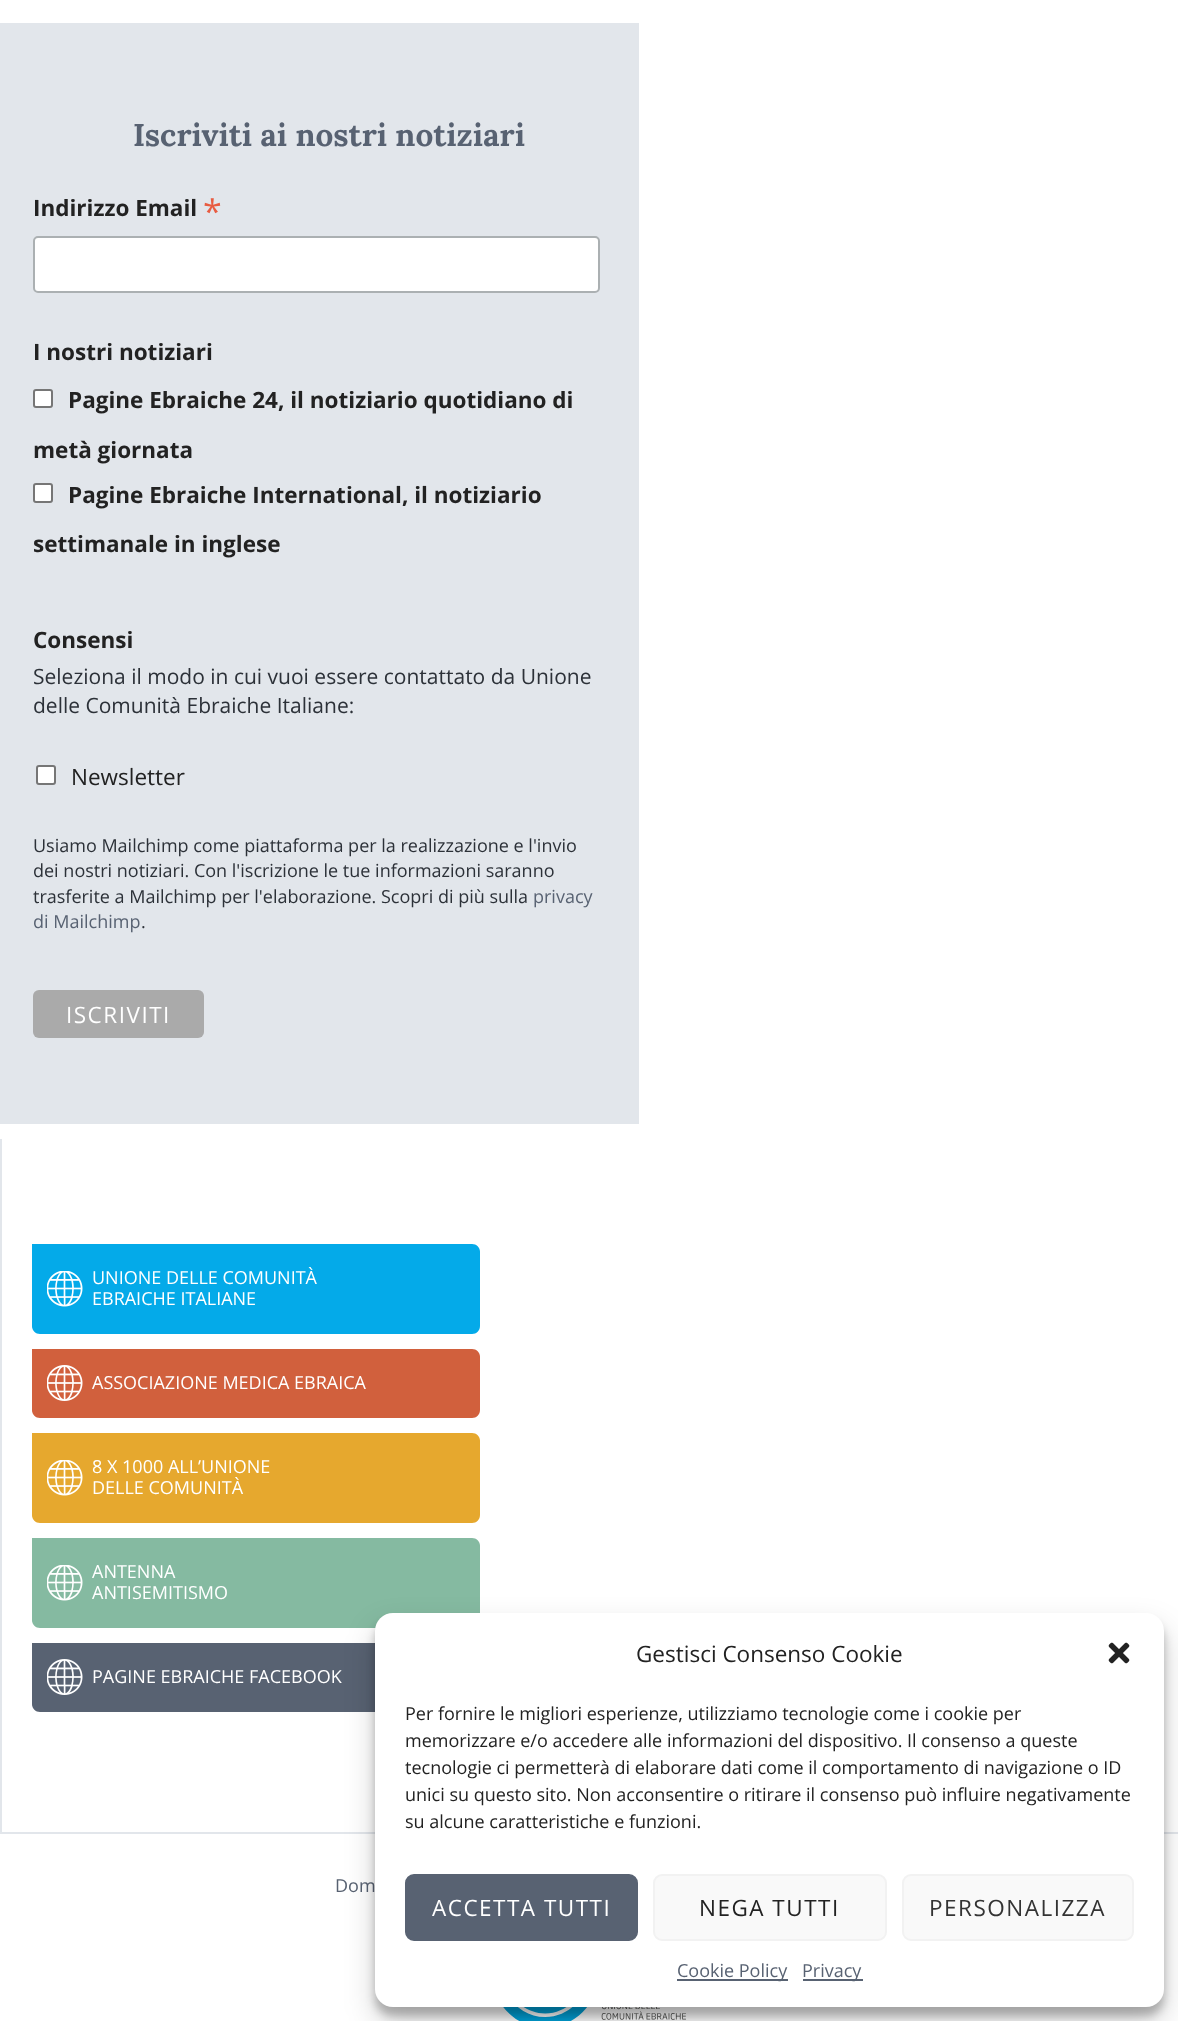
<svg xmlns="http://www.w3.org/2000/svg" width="1178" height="2021">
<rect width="100%" height="100%" fill="#fff"/>
<rect y="23" width="639" height="1101" fill="#e2e6eb"/>
<text x="133" y="146" style="font-family:Lora;font-size:31.5px;font-weight:bold;fill:#586272">Iscriviti ai nostri notiziari</text>
<text x="33" y="216" style="font-family:Open Sans;font-size:22.5px;font-weight:bold;fill:#222">Indirizzo Email</text>
<text x="203" y="224" style="font-family:Open Sans;font-size:34px;fill:#e85c41">*</text>
<rect x="34" y="237" width="565" height="55" rx="4" fill="#fff" stroke="#abb0b2" stroke-width="2"/>
<text x="33" y="360" style="font-family:Open Sans;font-size:22.5px;font-weight:bold;fill:#222">I nostri notiziari</text>
<rect x="34" y="390" width="18" height="17" rx="2" fill="#fff" stroke="#767676" stroke-width="2"/>
<text x="68" y="408" style="font-family:Open Sans;font-size:22.5px;font-weight:bold;fill:#222">Pagine Ebraiche 24, il notiziario quotidiano di</text>
<text x="33" y="458" style="font-family:Open Sans;font-size:22.5px;font-weight:bold;fill:#222">metà giornata</text>
<rect x="34" y="484" width="18" height="18" rx="2" fill="#fff" stroke="#767676" stroke-width="2"/>
<text x="68" y="503" style="font-family:Open Sans;font-size:22.5px;font-weight:bold;fill:#222">Pagine Ebraiche International, il notiziario</text>
<text x="33" y="552" style="font-family:Open Sans;font-size:22.5px;font-weight:bold;fill:#222">settimanale in inglese</text>
<text x="33" y="648" style="font-family:Open Sans;font-size:22.5px;font-weight:bold;fill:#222">Consensi</text>
<text x="33" y="684" style="font-family:Open Sans;font-size:21px;fill:#2c3138">Seleziona il modo in cui vuoi essere contattato da Unione</text>
<text x="33" y="713" style="font-family:Open Sans;font-size:21px;fill:#2c3138">delle Comunità Ebraiche Italiane:</text>
<rect x="37" y="766" width="18" height="18" rx="2" fill="#fff" stroke="#767676" stroke-width="2"/>
<text x="71" y="785" style="font-family:Open Sans;font-size:22.5px;fill:#222">Newsletter</text>
<text x="33" y="852" style="font-family:Open Sans;font-size:18px;fill:#2c3138">Usiamo Mailchimp come piattaforma per la realizzazione e l'invio</text>
<text x="33" y="877" style="font-family:Open Sans;font-size:18px;fill:#2c3138">dei nostri notiziari. Con l'iscrizione le tue informazioni saranno</text>
<text x="33" y="903" style="font-family:Open Sans;font-size:18px;fill:#2c3138">trasferite a Mailchimp per l'elaborazione. Scopri di più sulla</text>
<text x="533" y="903" style="font-family:Open Sans;font-size:18px;fill:#586272">privacy</text>
<text x="33" y="928" style="font-family:Open Sans;font-size:18px;fill:#586272">di Mailchimp</text>
<text x="141" y="928" style="font-family:Open Sans;font-size:18px;fill:#2c3138">.</text>
<rect x="33" y="990" width="171" height="48" rx="6" fill="#aaa"/>
<text x="66" y="1023" style="font-family:Open Sans;font-size:22.5px;letter-spacing:1.5px;fill:#fff">ISCRIVITI</text>
<rect y="1139" width="2" height="693" fill="#e2e6eb"/>
<path d="M32 1244h440c4.5 0 8 3.5 8 8v74c0 4.5-3.5 8-8 8h-432c-4.5 0-8-3.5-8-8z" fill="#04aae9"/>
<image x="47" y="1271" width="36" height="36" href="media/1.png"/>
<text x="92" y="1284" style="font-family:Open Sans;font-size:18px;fill:#fff">UNIONE DELLE COMUNITÀ</text>
<text x="92" y="1305" style="font-family:Open Sans;font-size:18px;fill:#fff">EBRAICHE ITALIANE</text>
<path d="M32 1349h440c4.5 0 8 3.5 8 8v53c0 4.5-3.5 8-8 8h-432c-4.5 0-8-3.5-8-8z" fill="#d1603d"/>
<image x="47" y="1365" width="36" height="36" href="media/2.png"/>
<text x="92" y="1389" style="font-family:Open Sans;font-size:18px;fill:#fff">ASSOCIAZIONE MEDICA EBRAICA</text>
<path d="M32 1433h440c4.5 0 8 3.5 8 8v74c0 4.5-3.5 8-8 8h-432c-4.5 0-8-3.5-8-8z" fill="#e6a82e"/>
<image x="47" y="1460" width="36" height="36" href="media/3.png"/>
<text x="92" y="1473" style="font-family:Open Sans;font-size:18px;fill:#fff">8 X 1000 ALL’UNIONE</text>
<text x="92" y="1494" style="font-family:Open Sans;font-size:18px;fill:#fff">DELLE COMUNITÀ</text>
<path d="M32 1538h440c4.5 0 8 3.5 8 8v74c0 4.5-3.5 8-8 8h-432c-4.5 0-8-3.5-8-8z" fill="#85baa1"/>
<image x="47" y="1565" width="36" height="36" href="media/4.png"/>
<text x="92" y="1578" style="font-family:Open Sans;font-size:18px;fill:#fff">ANTENNA</text>
<text x="92" y="1599" style="font-family:Open Sans;font-size:18px;fill:#fff">ANTISEMITISMO</text>
<path d="M32 1643h440c4.5 0 8 3.5 8 8v53c0 4.5-3.5 8-8 8h-432c-4.5 0-8-3.5-8-8z" fill="#586272"/>
<image x="47" y="1659" width="36" height="36" href="media/5.png"/>
<text x="92" y="1683" style="font-family:Open Sans;font-size:18px;fill:#fff">PAGINE EBRAICHE FACEBOOK</text>
<rect y="1832" width="1178" height="2" fill="#e2e6eb"/>
<text x="335" y="1892" style="font-family:Open Sans;font-size:18px;fill:#586272">Dom</text>
<image x="503" y="2007" width="183" height="14" href="media/6.png"/>
<rect x="375" y="1622" width="789" height="394" rx="18" fill="#0000003b" filter="blur(4.5px)"/>
<rect x="375" y="1628" width="789" height="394" rx="18" fill="#00000030" filter="blur(15px)"/>
<rect x="375" y="1613" width="789" height="394" rx="18" fill="#fff"/>
<text x="636" y="1662" style="font-family:Open Sans;font-size:22.5px;fill:#222">Gestisci Consenso Cookie</text>
<image x="1108" y="1642" width="22" height="22" href="media/7.png"/>
<text x="405" y="1720" style="font-family:Open Sans;font-size:18px;fill:#222">Per fornire le migliori esperienze, utilizziamo tecnologie come i cookie per</text>
<text x="405" y="1747" style="font-family:Open Sans;font-size:18px;fill:#222">memorizzare e/o accedere alle informazioni del dispositivo. Il consenso a queste</text>
<text x="405" y="1774" style="font-family:Open Sans;font-size:18px;fill:#222">tecnologie ci permetterà di elaborare dati come il comportamento di navigazione o ID</text>
<text x="405" y="1801" style="font-family:Open Sans;font-size:18px;fill:#222">unici su questo sito. Non acconsentire o ritirare il consenso può influire negativamente</text>
<text x="405" y="1828" style="font-family:Open Sans;font-size:18px;fill:#222">su alcune caratteristiche e funzioni.</text>
<rect x="406" y="1875" width="231" height="65" rx="8" fill="#586272" stroke="#586272" stroke-width="2"/>
<text x="432" y="1916" style="font-family:Open Sans;font-size:22.5px;letter-spacing:1.5px;fill:#fff">ACCETTA TUTTI</text>
<rect x="654" y="1875" width="232" height="65" rx="8" fill="#f9f9f9" stroke="#f2f2f2" stroke-width="2"/>
<text x="699" y="1916" style="font-family:Open Sans;font-size:22.5px;letter-spacing:1.5px;fill:#222">NEGA TUTTI</text>
<rect x="903" y="1875" width="230" height="65" rx="8" fill="#f9f9f9" stroke="#f2f2f2" stroke-width="2"/>
<text x="929" y="1916" style="font-family:Open Sans;font-size:22.5px;letter-spacing:1.5px;fill:#333">PERSONALIZZA</text>
<rect x="677" y="1979" width="111" height="2" fill="#586272"/>
<text x="677" y="1977" style="font-family:Open Sans;font-size:18px;fill:#586272">Cookie Policy</text>
<rect x="803" y="1979" width="60" height="2" fill="#586272"/>
<text x="802" y="1977" style="font-family:Open Sans;font-size:18px;fill:#586272">Privacy</text>
</svg>
